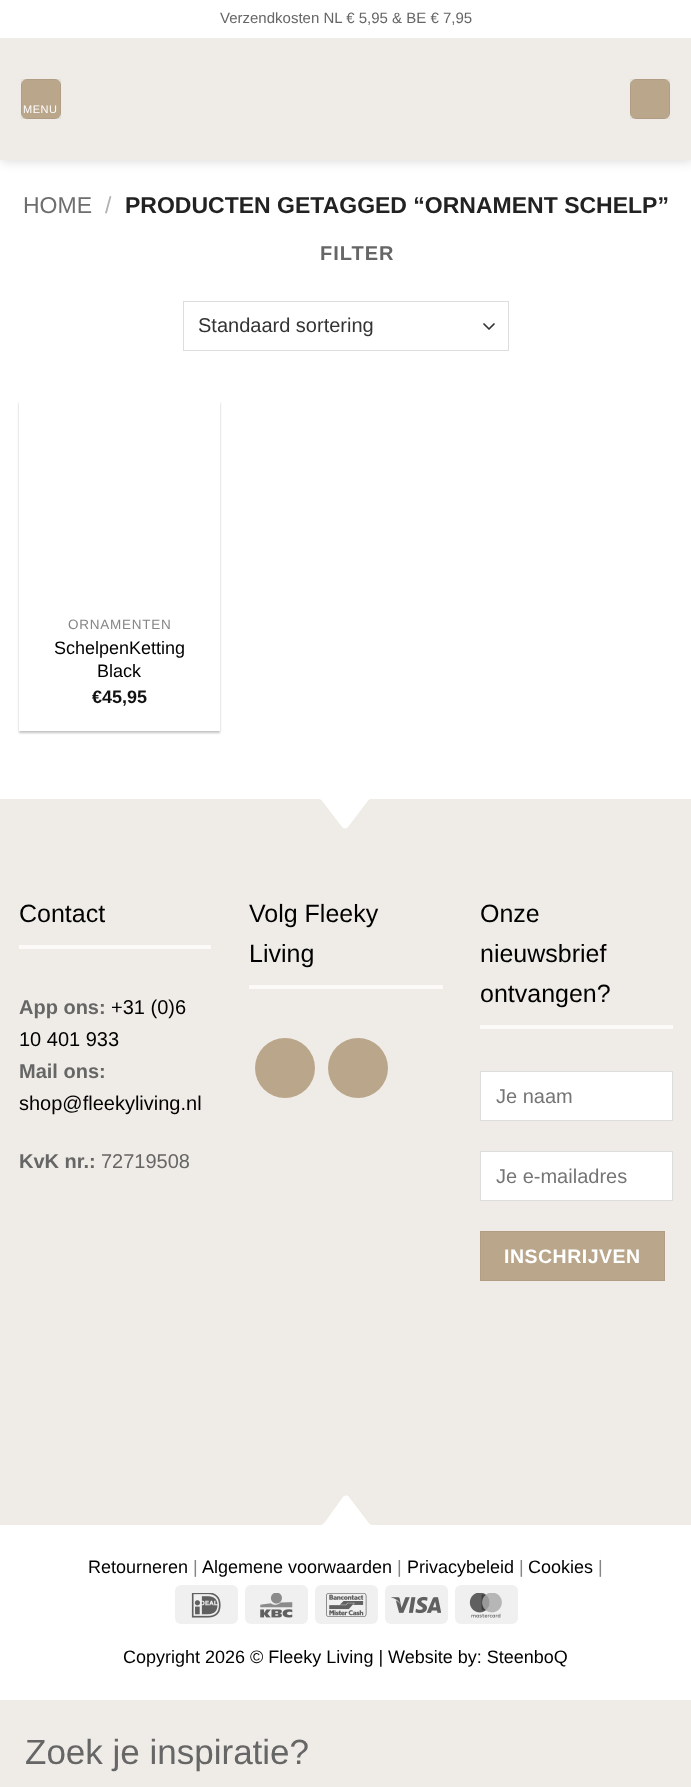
<svg xmlns="http://www.w3.org/2000/svg" width="691" height="1787">
<defs>
<clipPath id="clip1"><path d="M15 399h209v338h-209zm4 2h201v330h-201z" clip-rule="evenodd"/></clipPath>
<clipPath id="clip2"><rect y="793" width="691" height="187"/></clipPath>
</defs>
<rect width="100%" height="100%" fill="#efece7"/>
<rect y="160" width="691" height="1540" fill="#fff"/>
<rect x="1" y="1" width="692" height="160" fill="#00000026" filter="blur(6px)"/>
<rect width="691" height="38" fill="#fff"/>
<text x="220" y="23" style="font-family:Liberation Sans;font-size:15px;fill:#666">Verzendkosten NL € 5,95 &amp; BE € 7,95</text>
<rect y="38" width="691" height="122" fill="#efece7"/>
<rect x="21" y="79" width="40" height="40" rx="6" fill="#baa68b"/>
<rect x="21.5" y="79.5" width="39" height="39" fill="none" stroke="#0000000d"/>
<text x="23" y="113" style="font-family:Liberation Sans;font-size:11px;letter-spacing:0.5px;fill:#fff">MENU</text>
<rect x="630" y="79" width="40" height="40" rx="6" fill="#baa68b"/>
<rect x="630.5" y="79.5" width="39" height="39" fill="none" stroke="#0000000d"/>
<text x="23" y="213" style="font-family:Liberation Sans;font-size:23px;fill:#6e6e6e">HOME</text>
<text x="105" y="213" style="font-family:Liberation Sans;font-size:23px;fill:#b2b2b2">/</text>
<text x="125" y="213" style="font-family:Liberation Sans;font-size:23px;font-weight:bold;fill:#222">PRODUCTEN GETAGGED “ORNAMENT SCHELP”</text>
<text x="320" y="260" style="font-family:Liberation Sans;font-size:20px;font-weight:bold;letter-spacing:1px;fill:#666">FILTER</text>
<path d="M484 324l5 5l5-5" fill="none" stroke="#333" stroke-width="1.7" stroke-linecap="round" stroke-linejoin="round"/>
<rect x="183.5" y="301.5" width="325" height="49" fill="none" stroke="#ddd"/>
<text x="198" y="332" style="font-family:Liberation Sans;font-size:20px;fill:#333">Standaard sortering</text>
<g clip-path="url(#clip1)">
<rect x="19" y="403" width="201" height="330" fill="#0000003d" filter="blur(1px)"/>
</g>
<text x="68" y="629" style="font-family:Liberation Sans;font-size:13.5px;letter-spacing:0.75px;fill:#858585">ORNAMENTEN</text>
<text x="54" y="654" style="font-family:Liberation Sans;font-size:18px;fill:#000">SchelpenKetting</text>
<text x="97" y="677" style="font-family:Liberation Sans;font-size:18px;fill:#000">Black</text>
<text x="92" y="703" style="font-family:Liberation Sans;font-size:18px;font-weight:bold;fill:#111">€45,95</text>
<rect y="799" width="691" height="726" fill="#efece7"/>
<g clip-path="url(#clip2)">
<path d="M-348 791h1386v8h-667c-1 0-3 1-4 3l-19 25c-2 2-4 2-6 0l-19-25c-1-2-3-3-4-3h-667z" fill="#fff"/>
</g>
<rect x="19" y="945" width="192" height="4" fill="#fbfaf9"/>
<text x="19" y="922" style="font-family:Liberation Sans;font-size:25px;fill:#000">Contact</text>
<text x="19" y="1014" style="font-family:Liberation Sans;font-size:20px;font-weight:bold;fill:#666">App ons:</text>
<text x="111" y="1014" style="font-family:Liberation Sans;font-size:20px;fill:#000">+31 (0)6</text>
<text x="19" y="1046" style="font-family:Liberation Sans;font-size:20px;fill:#000">10 401 933</text>
<text x="19" y="1078" style="font-family:Liberation Sans;font-size:20px;font-weight:bold;fill:#666">Mail ons:</text>
<text x="19" y="1110" style="font-family:Liberation Sans;font-size:20px;fill:#000">shop@fleekyliving.nl</text>
<text x="19" y="1168" style="font-family:Liberation Sans;font-size:20px;font-weight:bold;fill:#666">KvK nr.:</text>
<text x="101" y="1168" style="font-family:Liberation Sans;font-size:20px;fill:#666">72719508</text>
<rect x="249" y="985" width="194" height="4" fill="#fbfaf9"/>
<text x="249" y="922" style="font-family:Liberation Sans;font-size:25px;fill:#000">Volg Fleeky</text>
<text x="249" y="962" style="font-family:Liberation Sans;font-size:25px;fill:#000">Living</text>
<circle cx="285" cy="1068" r="30" fill="#baa68b"/>
<circle cx="358" cy="1068" r="30" fill="#baa68b"/>
<rect x="480" y="1025" width="193" height="4" fill="#fbfaf9"/>
<text x="480" y="922" style="font-family:Liberation Sans;font-size:25px;fill:#000">Onze</text>
<text x="480" y="962" style="font-family:Liberation Sans;font-size:25px;fill:#000">nieuwsbrief</text>
<text x="480" y="1002" style="font-family:Liberation Sans;font-size:25px;fill:#000">ontvangen?</text>
<rect x="480.5" y="1071.5" width="192" height="49" fill="#fff" stroke="#ddd"/>
<text x="496" y="1103" style="font-family:Liberation Sans;font-size:20px;fill:#757575">Je naam</text>
<rect x="480.5" y="1151.5" width="192" height="49" fill="#fff" stroke="#ddd"/>
<text x="496" y="1183" style="font-family:Liberation Sans;font-size:20px;fill:#757575">Je e-mailadres</text>
<rect x="480.5" y="1231.5" width="184" height="49" fill="#baa68b" stroke="#b19e84"/>
<text x="504" y="1263" style="font-family:Liberation Sans;font-size:19.5px;font-weight:bold;letter-spacing:0.5px;fill:#fff">INSCHRIJVEN</text>
<path d="M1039 1532h-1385v-7h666c2 0 3-1 5-3l18-25c2-2 5-2 6 0l19 25c1 2 3 3 5 3h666z" fill="#fff"/>
<text x="88" y="1573" style="font-family:Liberation Sans;font-size:18px;fill:#000">Retourneren</text>
<text x="193" y="1573" style="font-family:Liberation Sans;font-size:18px;fill:#858585">|</text>
<text x="202" y="1573" style="font-family:Liberation Sans;font-size:18px;fill:#000">Algemene voorwaarden</text>
<text x="397" y="1573" style="font-family:Liberation Sans;font-size:18px;fill:#858585">|</text>
<text x="407" y="1573" style="font-family:Liberation Sans;font-size:18px;fill:#000">Privacybeleid</text>
<text x="519" y="1573" style="font-family:Liberation Sans;font-size:18px;fill:#858585">|</text>
<text x="528" y="1573" style="font-family:Liberation Sans;font-size:18px;fill:#000">Cookies</text>
<text x="598" y="1573" style="font-family:Liberation Sans;font-size:18px;fill:#858585">|</text>
<rect x="175" y="1585" width="63" height="39" rx="6" fill="#f0f0f0"/>
<image x="191" y="1593" width="30" height="25" href="media/1.png"/>
<rect x="245" y="1585" width="63" height="39" rx="6" fill="#f0f0f0"/>
<image x="260" y="1593" width="33" height="25" href="media/2.png"/>
<rect x="315" y="1585" width="63" height="39" rx="6" fill="#f0f0f0"/>
<image x="326" y="1593" width="41" height="24" href="media/3.png"/>
<rect x="385" y="1585" width="63" height="39" rx="6" fill="#f0f0f0"/>
<image x="391" y="1596" width="50" height="18" href="media/4.png"/>
<rect x="455" y="1585" width="63" height="39" rx="6" fill="#f0f0f0"/>
<image x="469" y="1593" width="33" height="25" href="media/5.png"/>
<text x="123" y="1663" style="font-family:Liberation Sans;font-size:18px;fill:#000">Copyright 2026 © Fleeky Living | Website by: SteenboQ</text>
<text x="25" y="1764" style="font-family:Liberation Sans;font-size:35px;fill:#666">Zoek je inspiratie?</text>
</svg>
